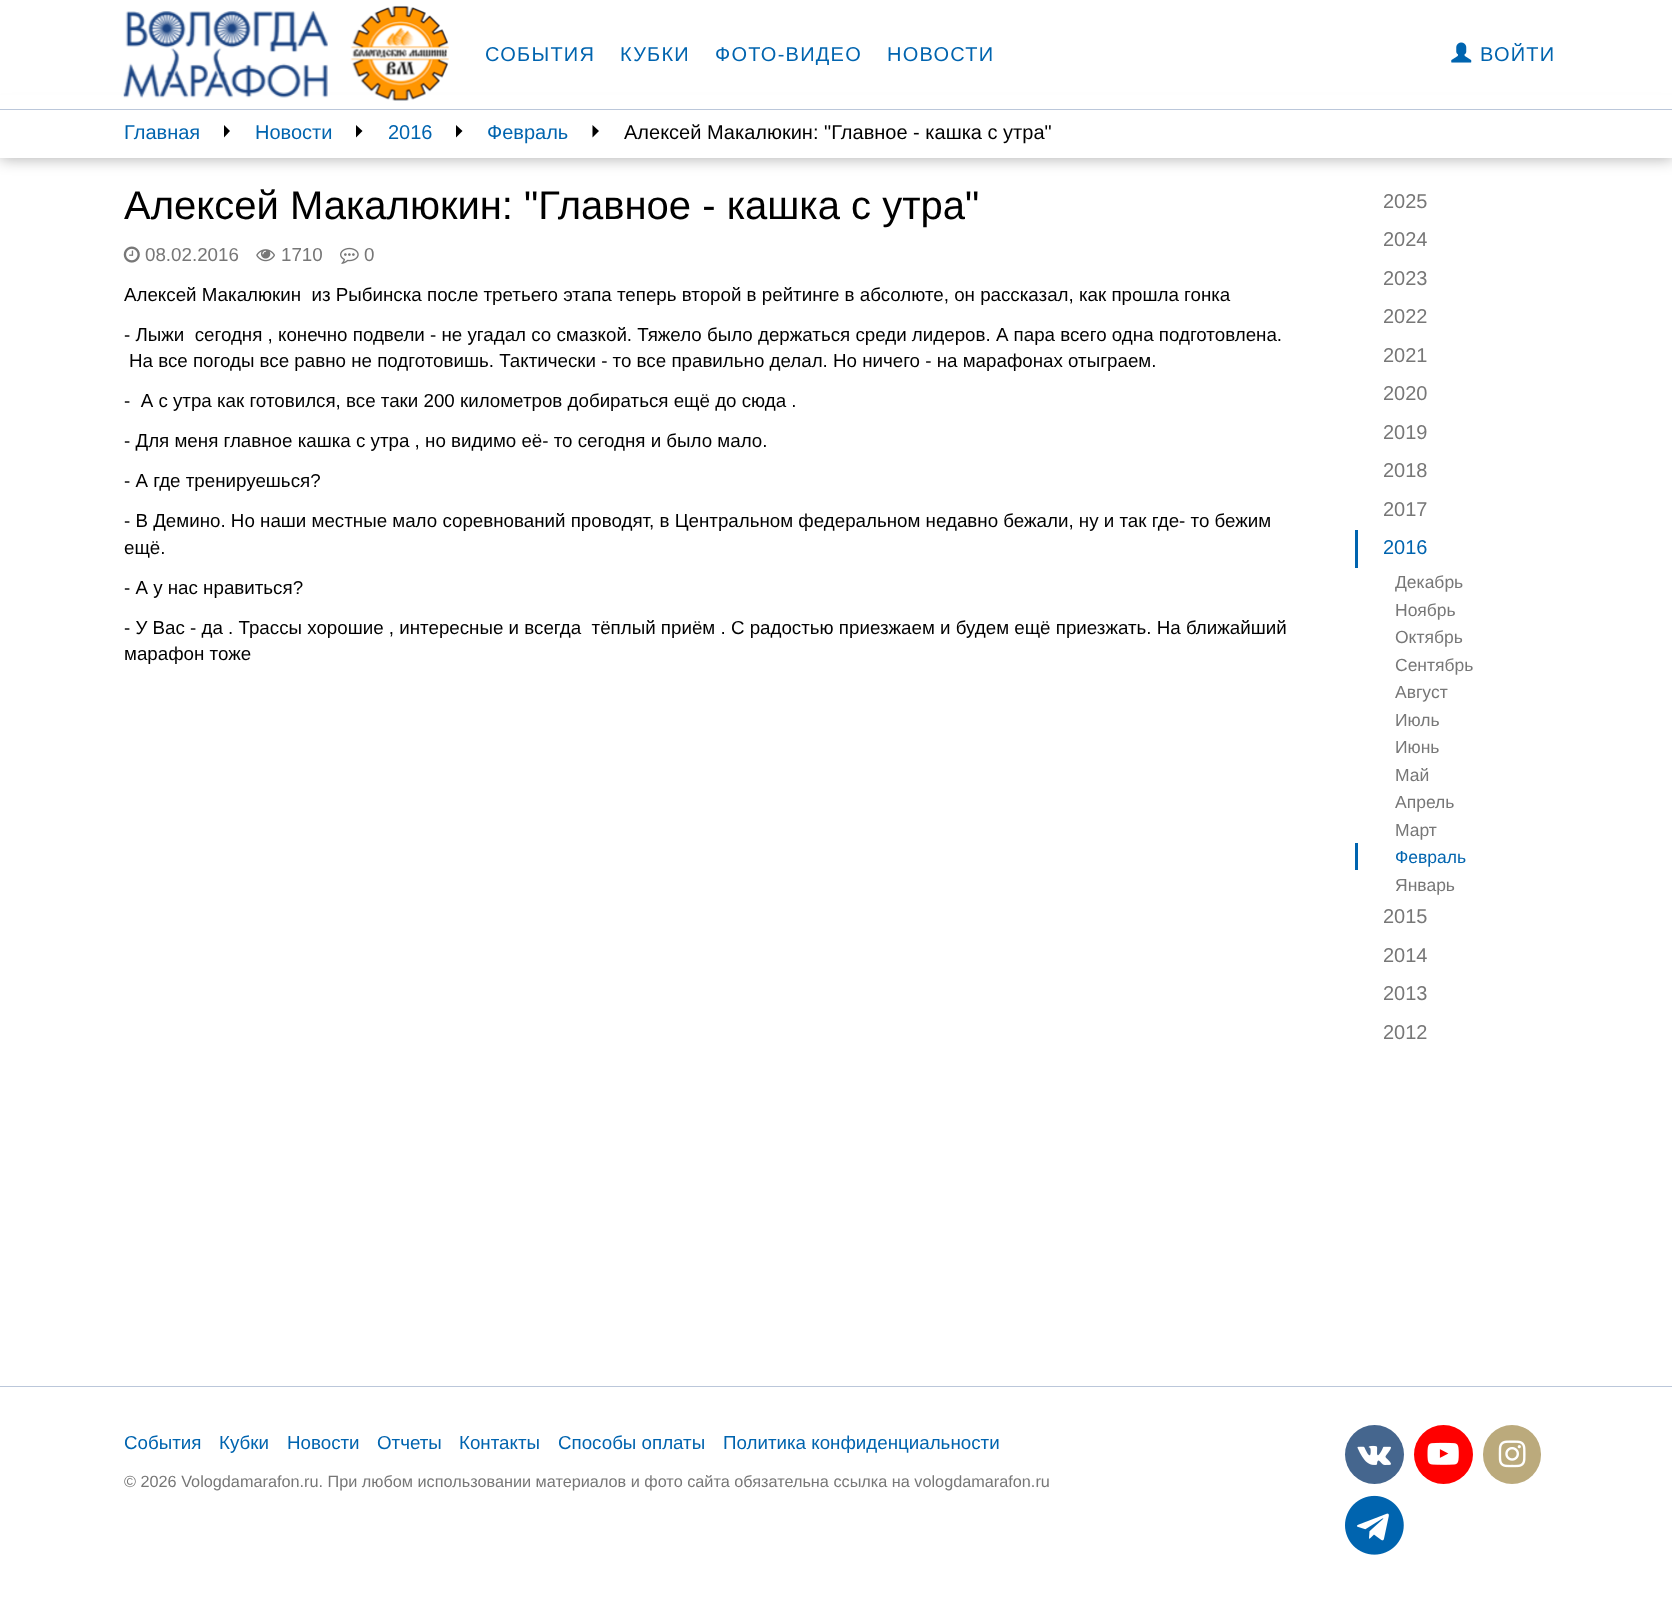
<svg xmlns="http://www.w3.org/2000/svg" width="1672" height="1605">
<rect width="100%" height="100%" fill="#fff"/>
<rect y="109" width="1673" height="50" fill="#0000004d" filter="blur(7.5px)"/>
<rect y="95" width="1672" height="14" fill="#fff"/>
<rect y="109" width="1672" height="1" fill="#bbc7da"/>
<image x="123" y="10" width="205" height="88" href="media/1.png"/>
<image x="350" y="5" width="99" height="96" href="media/2.png"/>
<text x="485" y="61" style="font-family:Liberation Sans;font-size:20px;letter-spacing:1.25px;fill:#0064af">СОБЫТИЯ</text>
<text x="620" y="61" style="font-family:Liberation Sans;font-size:20px;letter-spacing:1.25px;fill:#0064af">КУБКИ</text>
<text x="715" y="61" style="font-family:Liberation Sans;font-size:20px;letter-spacing:1.25px;fill:#0064af">ФОТО-ВИДЕО</text>
<text x="887" y="61" style="font-family:Liberation Sans;font-size:20px;letter-spacing:1.25px;fill:#0064af">НОВОСТИ</text>
<image x="1451" y="42" width="21" height="21" href="media/3.png"/>
<text x="1480" y="61" style="font-family:Liberation Sans;font-size:20px;letter-spacing:1.25px;fill:#0064af">ВОЙТИ</text>
<rect y="110" width="1672" height="48" fill="#fff"/>
<text x="124" y="139" style="font-family:Liberation Sans;font-size:20px;fill:#0064af">Главная</text>
<path d="M224 137.5v-12.5l6 6z" fill="#000"/>
<text x="255" y="139" style="font-family:Liberation Sans;font-size:20px;fill:#0064af">Новости</text>
<path d="M356 137.5v-12.5l6.5 6z" fill="#000"/>
<text x="388" y="139" style="font-family:Liberation Sans;font-size:20px;fill:#0064af">2016</text>
<path d="M456 137.5v-12.5l6.5 6z" fill="#000"/>
<text x="487" y="139" style="font-family:Liberation Sans;font-size:20px;fill:#0064af">Февраль</text>
<path d="M592.5 137.5v-12.5l6.5 6z" fill="#000"/>
<text x="624" y="139" style="font-family:Liberation Sans;font-size:20px;fill:#000">Алексей Макалюкин: "Главное - кашка с утра"</text>
<text x="1383" y="208" style="font-family:Liberation Sans;font-size:20px;fill:#777">2025</text>
<text x="1383" y="246" style="font-family:Liberation Sans;font-size:20px;fill:#777">2024</text>
<text x="1383" y="285" style="font-family:Liberation Sans;font-size:20px;fill:#777">2023</text>
<text x="1383" y="323" style="font-family:Liberation Sans;font-size:20px;fill:#777">2022</text>
<text x="1383" y="362" style="font-family:Liberation Sans;font-size:20px;fill:#777">2021</text>
<text x="1383" y="400" style="font-family:Liberation Sans;font-size:20px;fill:#777">2020</text>
<text x="1383" y="439" style="font-family:Liberation Sans;font-size:20px;fill:#777">2019</text>
<text x="1383" y="477" style="font-family:Liberation Sans;font-size:20px;fill:#777">2018</text>
<text x="1383" y="516" style="font-family:Liberation Sans;font-size:20px;fill:#777">2017</text>
<rect x="1355" y="530" width="3" height="38" fill="#0064af"/>
<text x="1383" y="554" style="font-family:Liberation Sans;font-size:20px;fill:#0064af">2016</text>
<text x="1395" y="588" style="font-family:Liberation Sans;font-size:17.5px;fill:#777">Декабрь</text>
<text x="1395" y="616" style="font-family:Liberation Sans;font-size:17.5px;fill:#777">Ноябрь</text>
<text x="1395" y="643" style="font-family:Liberation Sans;font-size:17.5px;fill:#777">Октябрь</text>
<text x="1395" y="671" style="font-family:Liberation Sans;font-size:17.5px;fill:#777">Сентябрь</text>
<text x="1395" y="698" style="font-family:Liberation Sans;font-size:17.5px;fill:#777">Август</text>
<text x="1395" y="726" style="font-family:Liberation Sans;font-size:17.5px;fill:#777">Июль</text>
<text x="1395" y="753" style="font-family:Liberation Sans;font-size:17.5px;fill:#777">Июнь</text>
<text x="1395" y="781" style="font-family:Liberation Sans;font-size:17.5px;fill:#777">Май</text>
<text x="1395" y="808" style="font-family:Liberation Sans;font-size:17.5px;fill:#777">Апрель</text>
<text x="1395" y="836" style="font-family:Liberation Sans;font-size:17.5px;fill:#777">Март</text>
<rect x="1355" y="843" width="3" height="27" fill="#0064af"/>
<text x="1395" y="863" style="font-family:Liberation Sans;font-size:17.5px;fill:#0064af">Февраль</text>
<text x="1395" y="891" style="font-family:Liberation Sans;font-size:17.5px;fill:#777">Январь</text>
<text x="1383" y="923" style="font-family:Liberation Sans;font-size:20px;fill:#777">2015</text>
<text x="1383" y="962" style="font-family:Liberation Sans;font-size:20px;fill:#777">2014</text>
<text x="1383" y="1000" style="font-family:Liberation Sans;font-size:20px;fill:#777">2013</text>
<text x="1383" y="1039" style="font-family:Liberation Sans;font-size:20px;fill:#777">2012</text>
<text x="124" y="219" style="font-family:Liberation Sans;font-size:40px;fill:#000">Алексей Макалюкин: "Главное - кашка с утра"</text>
<image x="123" y="246" width="17" height="17" href="media/4.png"/>
<text x="145" y="261" style="font-family:Liberation Sans;font-size:18.75px;fill:#777">08.02.2016</text>
<image x="256" y="249" width="19" height="13" href="media/5.png"/>
<text x="281" y="261" style="font-family:Liberation Sans;font-size:18.75px;fill:#777">1710</text>
<image x="340" y="247" width="19" height="17" href="media/6.png"/>
<text x="364" y="261" style="font-family:Liberation Sans;font-size:18.75px;fill:#777">0</text>
<text x="124" y="301" style="font-family:Liberation Sans;font-size:18.75px;fill:#000" xml:space="preserve">Алексей Макалюкин  из Рыбинска после третьего этапа теперь второй в рейтинге в абсолюте, он рассказал, как прошла гонка</text>
<text x="124" y="341" style="font-family:Liberation Sans;font-size:18.75px;fill:#000" xml:space="preserve">- Лыжи  сегодня , конечно подвели - не угадал со смазкой. Тяжело было держаться среди лидеров. А пара всего одна подготовлена.</text>
<text x="129" y="367" style="font-family:Liberation Sans;font-size:18.75px;fill:#000">На все погоды все равно не подготовишь. Тактически - то все правильно делал. Но ничего - на марафонах отыграем.</text>
<text x="124" y="407" style="font-family:Liberation Sans;font-size:18.75px;fill:#000" xml:space="preserve">-  А с утра как готовился, все таки 200 километров добираться ещё до сюда .</text>
<text x="124" y="447" style="font-family:Liberation Sans;font-size:18.75px;fill:#000">- Для меня главное кашка с утра , но видимо её- то сегодня и было мало.</text>
<text x="124" y="487" style="font-family:Liberation Sans;font-size:18.75px;fill:#000">- А где тренируешься?</text>
<text x="124" y="527" style="font-family:Liberation Sans;font-size:18.75px;fill:#000">- В Демино. Но наши местные мало соревнований проводят, в Центральном федеральном недавно бежали, ну и так где- то бежим</text>
<text x="124" y="554" style="font-family:Liberation Sans;font-size:18.75px;fill:#000">ещё.</text>
<text x="124" y="594" style="font-family:Liberation Sans;font-size:18.75px;fill:#000">- А у нас нравиться?</text>
<text x="124" y="634" style="font-family:Liberation Sans;font-size:18.75px;fill:#000" xml:space="preserve">- У Вас - да . Трассы хорошие , интересные и всегда  тёплый приём . С радостью приезжаем и будем ещё приезжать. На ближайший</text>
<text x="124" y="660" style="font-family:Liberation Sans;font-size:18.75px;fill:#000">марафон тоже</text>
<rect y="1386" width="1672" height="1" fill="#bbc7da"/>
<text x="124" y="1449" style="font-family:Liberation Sans;font-size:18.75px;fill:#0064af">События</text>
<text x="219" y="1449" style="font-family:Liberation Sans;font-size:18.75px;fill:#0064af">Кубки</text>
<text x="287" y="1449" style="font-family:Liberation Sans;font-size:18.75px;fill:#0064af">Новости</text>
<text x="377" y="1449" style="font-family:Liberation Sans;font-size:18.75px;fill:#0064af">Отчеты</text>
<text x="459" y="1449" style="font-family:Liberation Sans;font-size:18.75px;fill:#0064af">Контакты</text>
<text x="558" y="1449" style="font-family:Liberation Sans;font-size:18.75px;fill:#0064af">Способы оплаты</text>
<text x="723" y="1449" style="font-family:Liberation Sans;font-size:18.75px;fill:#0064af">Политика конфиденциальности</text>
<text x="124" y="1487" style="font-family:Liberation Sans;font-size:16.25px;fill:#777">© 2026 Vologdamarafon.ru. При любом использовании материалов и фото сайта обязательна ссылка на vologdamarafon.ru</text>
<circle cx="1374.5" cy="1454.5" r="29.5" fill="#45668e"/>
<image x="1357" y="1445" width="34" height="20" href="media/7.png"/>
<circle cx="1443.5" cy="1454.5" r="29.5" fill="#f00"/>
<image x="1427" y="1442" width="32" height="23" href="media/8.png"/>
<rect x="1483" y="1425" width="58" height="59" rx="29" fill="#bbaa7c"/>
<image x="1498" y="1440" width="28" height="28" href="media/9.png"/>
<image x="1345" y="1495" width="59" height="60" href="media/10.png"/>
</svg>
